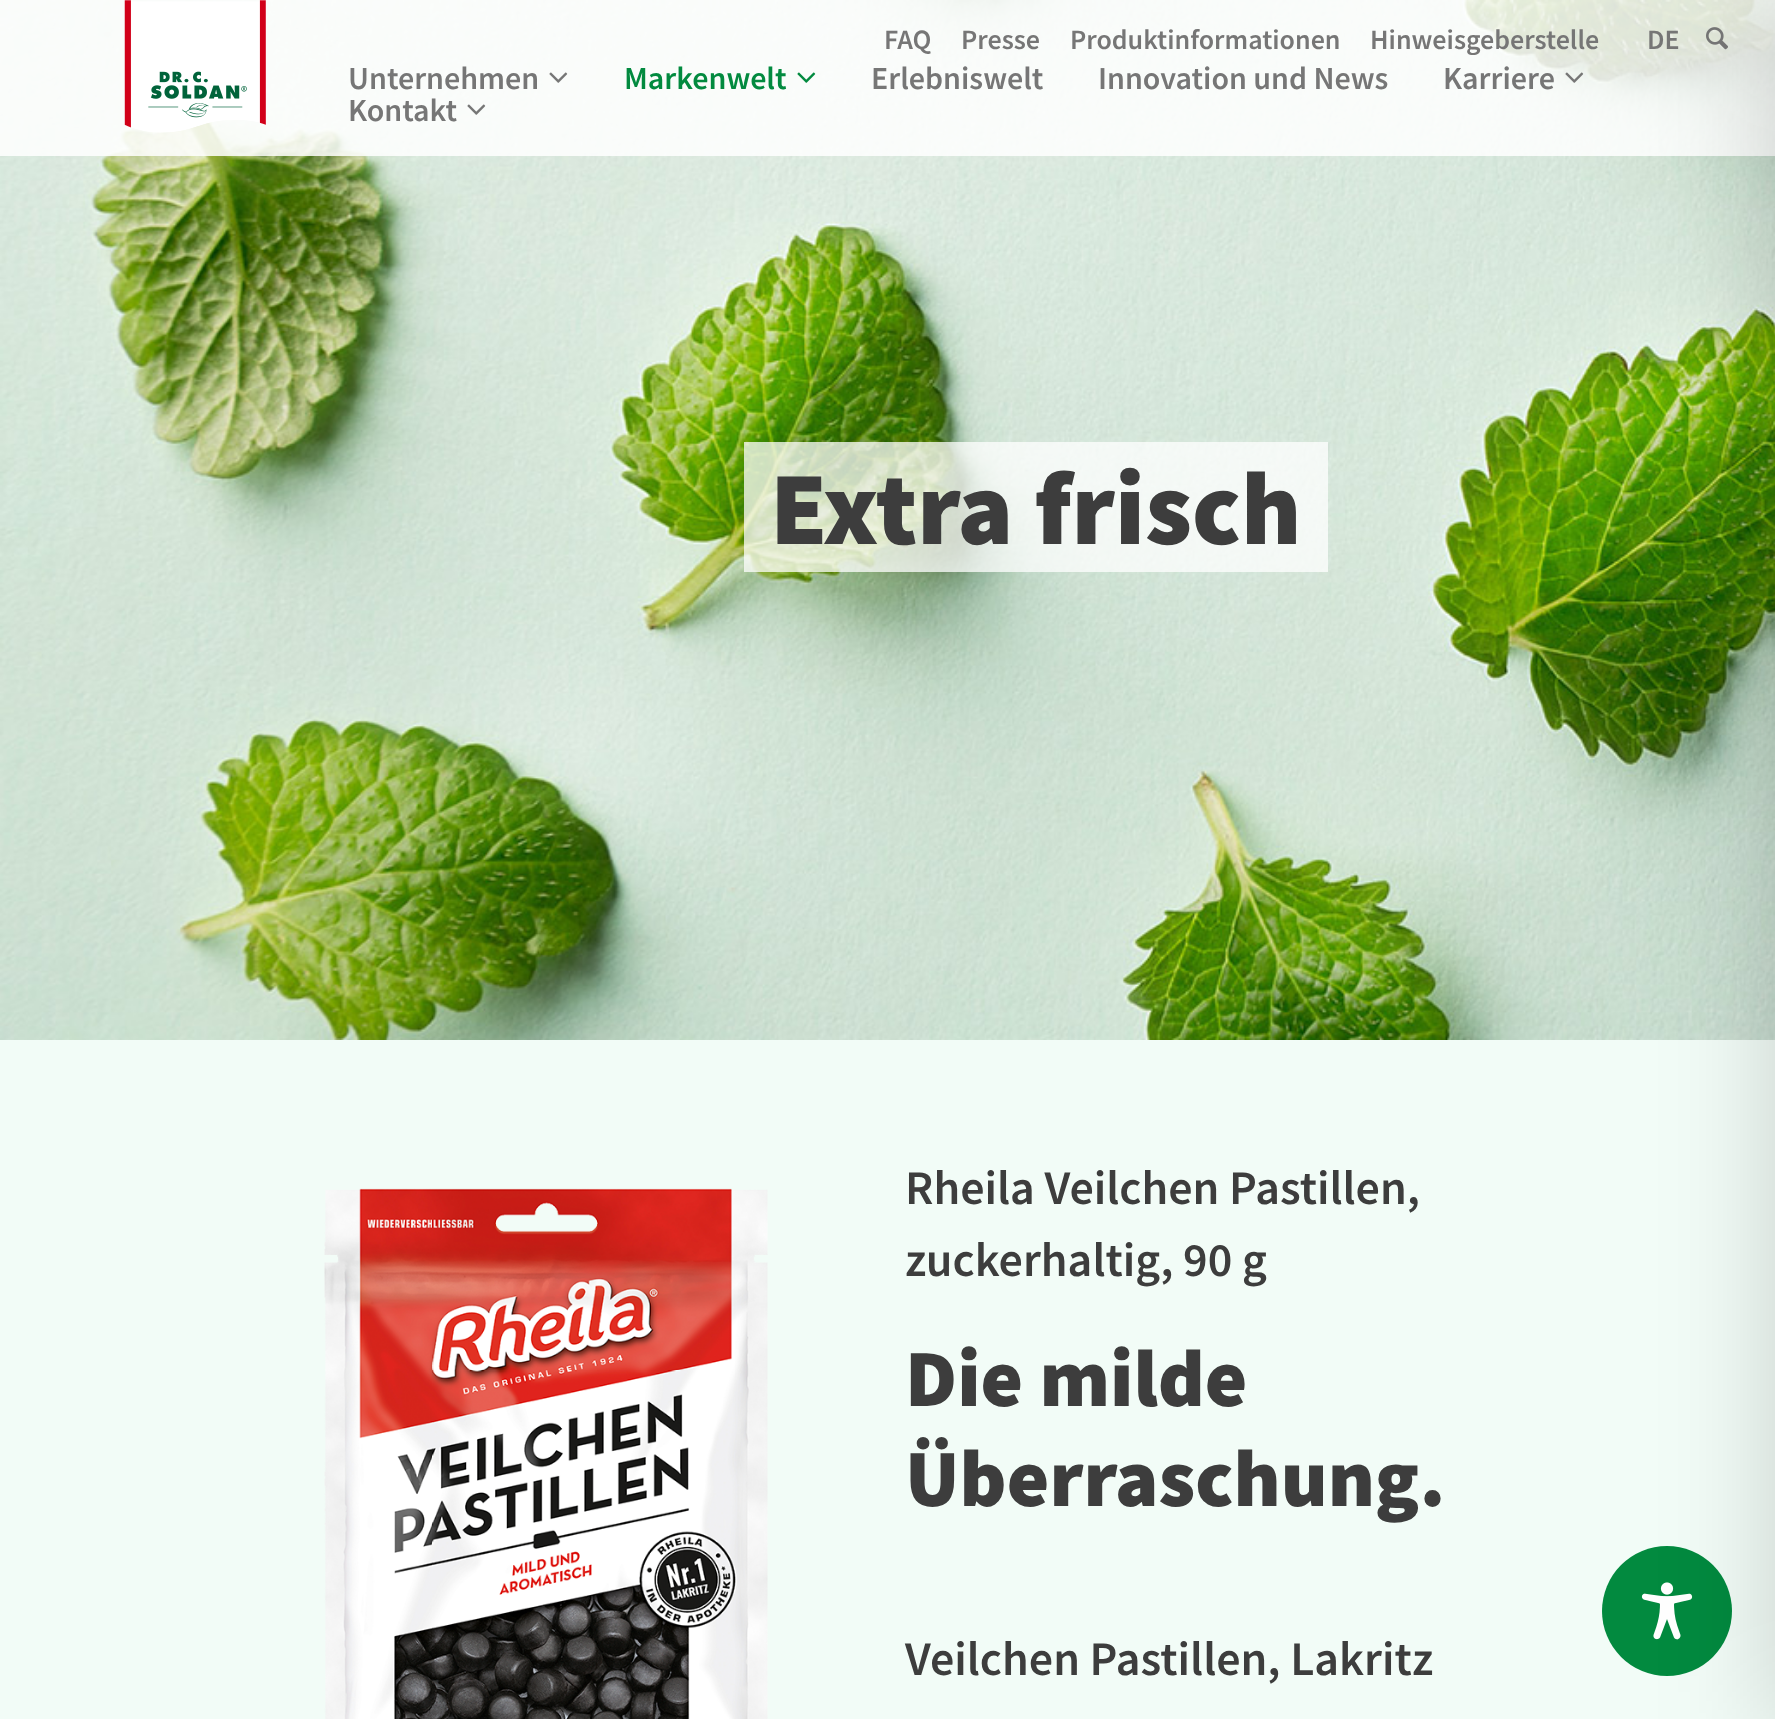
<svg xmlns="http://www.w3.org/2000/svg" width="1775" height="1719">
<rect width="100%" height="100%" fill="#f2fcf7"/>
<image x="0" y="0" width="1775" height="1040" href="media/7.png"/>
<rect width="1775" height="156" fill="#ffffffd9"/>
<image x="124" y="0" width="142" height="133" href="media/1.png"/>
<text x="884" y="49" style="font-family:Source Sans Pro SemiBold;font-size:28px;font-weight:600;fill:#767676">FAQ</text>
<text x="961" y="49" style="font-family:Source Sans Pro SemiBold;font-size:28px;font-weight:600;fill:#767676">Presse</text>
<text x="1070" y="49" style="font-family:Source Sans Pro SemiBold;font-size:28px;font-weight:600;fill:#767676">Produktinformationen</text>
<text x="1370" y="49" style="font-family:Source Sans Pro SemiBold;font-size:28px;font-weight:600;fill:#767676">Hinweisgeberstelle</text>
<text x="1647" y="49" style="font-family:Source Sans Pro SemiBold;font-size:28px;font-weight:600;fill:#767676">DE</text>
<image x="1706" y="27" width="22" height="23" href="media/2.png"/>
<text x="348" y="89" style="font-family:Source Sans Pro SemiBold;font-size:32px;font-weight:600;fill:#767676">Unternehmen</text>
<image x="549" y="72" width="19" height="11" href="media/3.png"/>
<text x="624" y="89" style="font-family:Source Sans Pro SemiBold;font-size:32px;font-weight:600;fill:#028a3f">Markenwelt</text>
<image x="797" y="72" width="19" height="11" href="media/4.png"/>
<text x="871" y="89" style="font-family:Source Sans Pro SemiBold;font-size:32px;font-weight:600;fill:#767676">Erlebniswelt</text>
<text x="1098" y="89" style="font-family:Source Sans Pro SemiBold;font-size:32px;font-weight:600;fill:#767676">Innovation und News</text>
<text x="1443" y="89" style="font-family:Source Sans Pro SemiBold;font-size:32px;font-weight:600;fill:#767676">Karriere</text>
<image x="1565" y="72" width="19" height="11" href="media/5.png"/>
<text x="348" y="121" style="font-family:Source Sans Pro SemiBold;font-size:32px;font-weight:600;fill:#767676">Kontakt</text>
<image x="467" y="104" width="19" height="11" href="media/6.png"/>
<rect x="770" y="442" width="532" height="130" fill="#ffffffbf"/>
<text x="770" y="544" style="font-family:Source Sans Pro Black;font-size:104px;font-weight:900;fill:#3d3d3d">Extra frisch</text>
<rect x="1302" y="442" width="26" height="130" fill="#ffffffbf"/>
<rect x="744" y="442" width="26" height="130" fill="#ffffffbf"/>
<image x="324" y="1188" width="444" height="531" href="media/8.png"/>
<text x="905" y="1204" style="font-family:Source Sans Pro SemiBold;font-size:48px;font-weight:600;fill:#3d3d3d">Rheila Veilchen Pastillen,</text>
<text x="905" y="1276" style="font-family:Source Sans Pro SemiBold;font-size:48px;font-weight:600;fill:#3d3d3d">zuckerhaltig, 90 g</text>
<text x="905" y="1406" style="font-family:Source Sans Pro Black;font-size:81.25px;font-weight:900;fill:#3d3d3d">Die milde</text>
<text x="905" y="1506" style="font-family:Source Sans Pro Black;font-size:81.25px;font-weight:900;fill:#3d3d3d">Überraschung.</text>
<text x="905" y="1675" style="font-family:Source Sans Pro SemiBold;font-size:48px;font-weight:600;fill:#3d3d3d">Veilchen Pastillen, Lakritz</text>
<circle cx="1667" cy="1611" r="65" fill="#028a3f"/>
<image x="1641" y="1582" width="52" height="58" href="media/9.png"/>
<rect x="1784" y="20" width="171" height="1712" fill="#00000033" filter="blur(60px)"/>
</svg>
